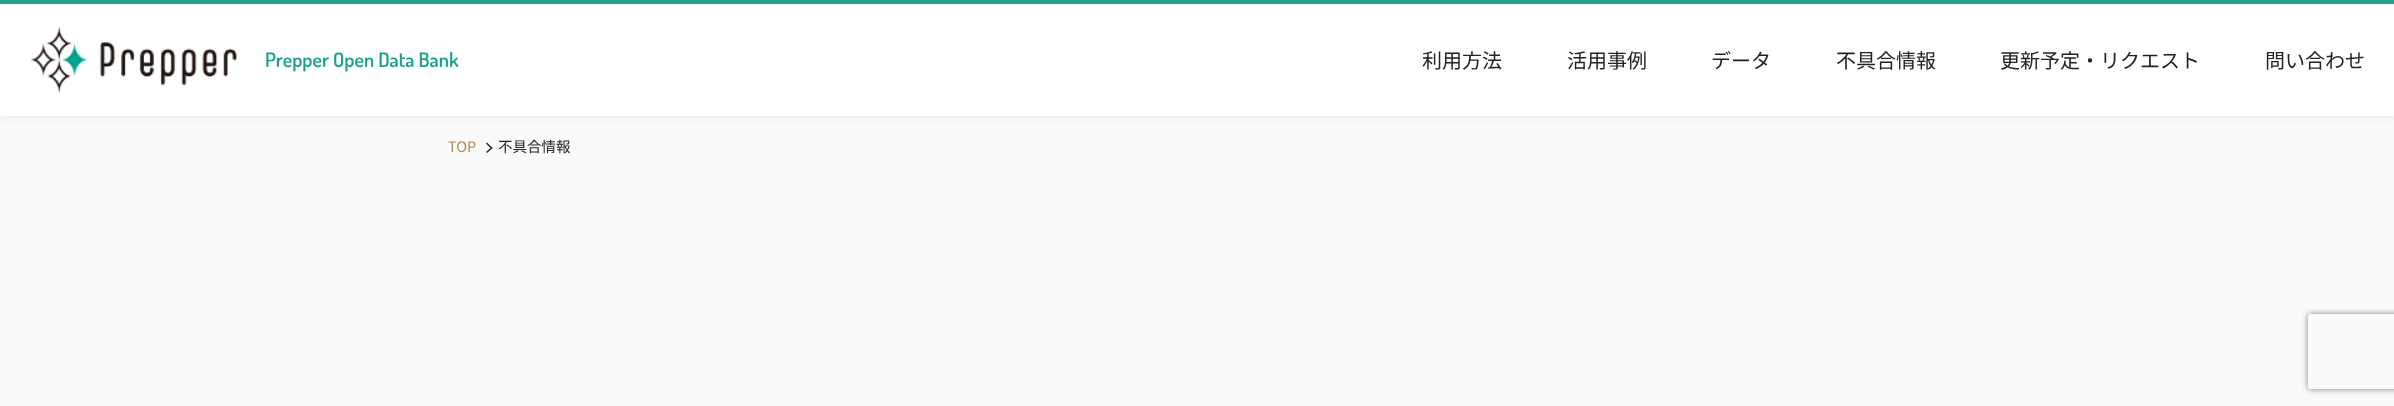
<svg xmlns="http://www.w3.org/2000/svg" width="2394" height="406">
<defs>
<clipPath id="clip1"><path d="M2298 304h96v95h-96zm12.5 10h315c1.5 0 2.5 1 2.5 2.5v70c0 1.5-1 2.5-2.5 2.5h-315c-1.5 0-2.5-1-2.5-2.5v-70c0-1.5 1-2.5 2.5-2.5z" clip-rule="evenodd"/></clipPath>
</defs>
<rect width="100%" height="100%" fill="#fafafa"/>
<rect width="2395" height="116" fill="#0000001a" filter="blur(4px)"/>
<rect y="4" width="2394" height="112" fill="#fff"/>
<rect width="2394" height="4" fill="#24a18d"/>
<image x="30" y="26" width="207" height="68" href="media/1.png"/>
<text x="265" y="67" style="font-family:Dosis;font-size:20px;font-weight:600;fill:#18a28d">Prepper Open Data Bank</text>
<text x="1422" y="68" style="font-family:Noto Sans JP;font-size:20px;fill:#222">利用方法</text>
<text x="1567" y="68" style="font-family:Noto Sans JP;font-size:20px;fill:#222">活用事例</text>
<text x="1711" y="68" style="font-family:Noto Sans JP;font-size:20px;fill:#222">データ</text>
<text x="1836" y="68" style="font-family:Noto Sans JP;font-size:20px;fill:#222">不具合情報</text>
<text x="2000" y="68" style="font-family:Noto Sans JP;font-size:20px;fill:#222">更新予定・リクエスト</text>
<text x="2265" y="68" style="font-family:Noto Sans JP;font-size:20px;fill:#222">問い合わせ</text>
<text x="448" y="152" style="font-family:Noto Sans JP;font-size:14.5px;fill:#b28950">TOP</text>
<path d="M487 142.5l5.5 5.5l-1 1l-5.5-5.5z" fill="#222"/>
<path d="M491.5 147l1 1l-5.5 5l-1-1z" fill="#222"/>
<text x="498" y="152" style="font-family:Noto Sans JP;font-size:14.5px;fill:#222">不具合情報</text>
<g clip-path="url(#clip1)">
<rect x="2308" y="314" width="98" height="75" rx="2.5" fill="#808080" filter="blur(3px)"/>
</g>
</svg>
